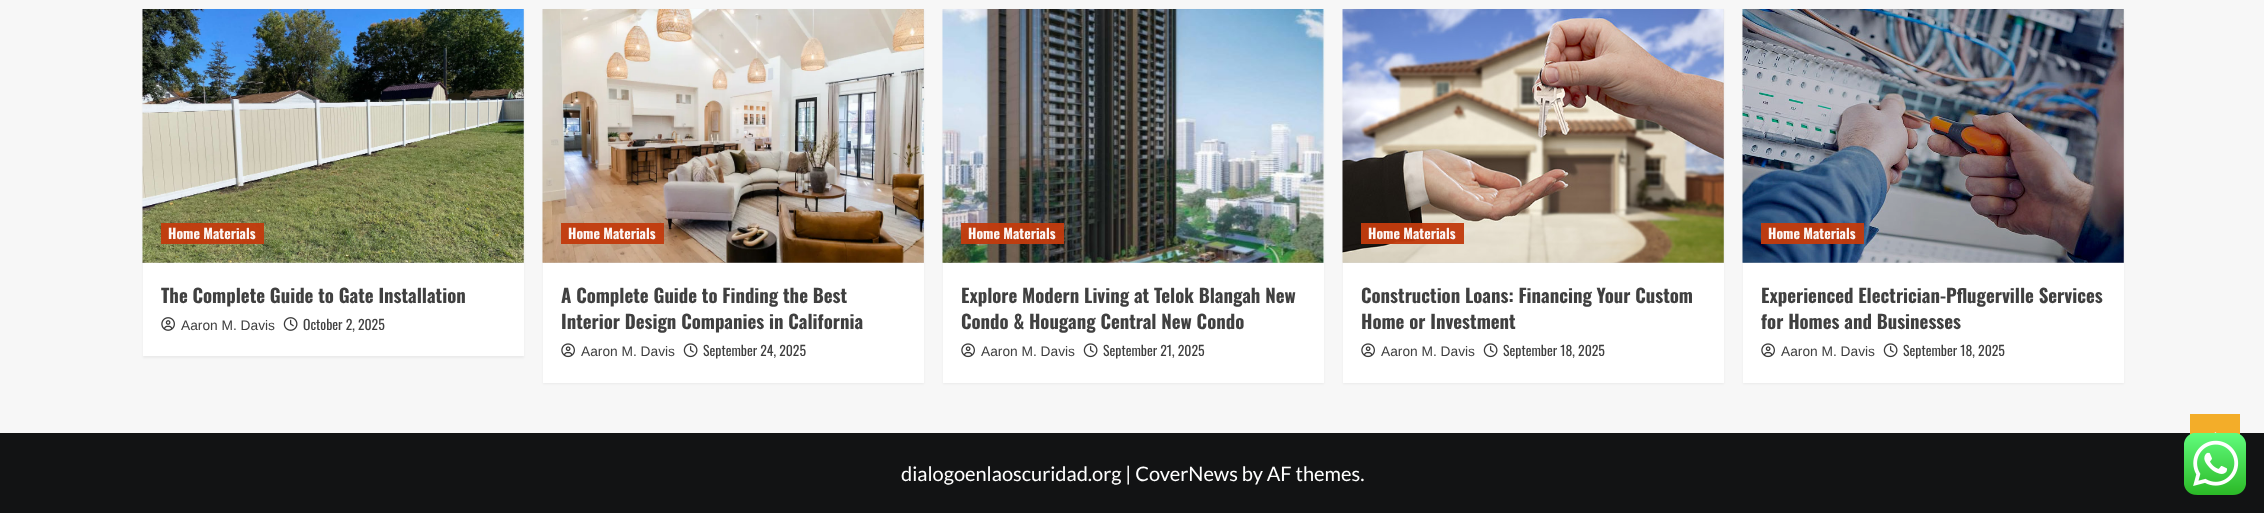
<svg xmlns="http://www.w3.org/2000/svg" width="2264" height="513">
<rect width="100%" height="100%" fill="#f7f7f7"/>
<rect x="143" y="10" width="381" height="348" fill="#0000000d" filter="blur(1px)"/>
<rect x="143" y="263" width="381" height="93" fill="#fff"/>
<rect x="143" y="9" width="381" height="254" fill="#d8d8d8"/>
<image x="142" y="9" width="382" height="254" href="media/1.png"/>
<rect x="161" y="223" width="103" height="21" fill="#c23b0ef5"/>
<text x="168" y="239" style="font-family:Oswald;font-size:13.75px;font-weight:bold;fill:#fcf7f5">Home Materials</text>
<text x="161" y="303" style="font-family:Oswald;font-size:18.75px;font-weight:bold;fill:#404040">The Complete Guide to Gate Installation</text>
<image x="161" y="317" width="14" height="14" href="media/2.png"/>
<text x="181" y="330" style="font-family:Liberation Sans;font-size:13.75px;fill:#404040">Aaron M. Davis</text>
<image x="283" y="317" width="15" height="14" href="media/3.png"/>
<text x="303" y="330" style="font-family:Oswald;font-size:13.75px;fill:#404040">October 2, 2025</text>
<rect x="543" y="10" width="381" height="374" fill="#0000000d" filter="blur(1px)"/>
<rect x="543" y="263" width="381" height="120" fill="#fff"/>
<rect x="543" y="9" width="381" height="254" fill="#d8d8d8"/>
<image x="542" y="9" width="382" height="254" href="media/4.png"/>
<rect x="561" y="223" width="103" height="21" fill="#c23b0ef5"/>
<text x="568" y="239" style="font-family:Oswald;font-size:13.75px;font-weight:bold;fill:#fcf7f5">Home Materials</text>
<text x="561" y="303" style="font-family:Oswald;font-size:18.75px;font-weight:bold;fill:#404040">A Complete Guide to Finding the Best</text>
<text x="561" y="329" style="font-family:Oswald;font-size:18.75px;font-weight:bold;fill:#404040">Interior Design Companies in California</text>
<image x="561" y="343" width="14" height="15" href="media/5.png"/>
<text x="581" y="356" style="font-family:Liberation Sans;font-size:13.75px;fill:#404040">Aaron M. Davis</text>
<image x="683" y="343" width="15" height="15" href="media/6.png"/>
<text x="703" y="356" style="font-family:Oswald;font-size:13.75px;fill:#404040">September 24, 2025</text>
<rect x="943" y="10" width="381" height="374" fill="#0000000d" filter="blur(1px)"/>
<rect x="943" y="263" width="381" height="120" fill="#fff"/>
<rect x="943" y="9" width="381" height="254" fill="#d8d8d8"/>
<image x="942" y="9" width="382" height="254" href="media/7.png"/>
<rect x="961" y="223" width="103" height="21" fill="#c23b0ef5"/>
<text x="968" y="239" style="font-family:Oswald;font-size:13.75px;font-weight:bold;fill:#fcf7f5">Home Materials</text>
<text x="961" y="303" style="font-family:Oswald;font-size:18.75px;font-weight:bold;fill:#404040">Explore Modern Living at Telok Blangah New</text>
<text x="961" y="329" style="font-family:Oswald;font-size:18.75px;font-weight:bold;fill:#404040">Condo &amp; Hougang Central New Condo</text>
<image x="961" y="343" width="14" height="15" href="media/5.png"/>
<text x="981" y="356" style="font-family:Liberation Sans;font-size:13.75px;fill:#404040">Aaron M. Davis</text>
<image x="1083" y="343" width="15" height="15" href="media/6.png"/>
<text x="1103" y="356" style="font-family:Oswald;font-size:13.75px;fill:#404040">September 21, 2025</text>
<rect x="1343" y="10" width="381" height="374" fill="#0000000d" filter="blur(1px)"/>
<rect x="1343" y="263" width="381" height="120" fill="#fff"/>
<rect x="1343" y="9" width="381" height="254" fill="#d8d8d8"/>
<image x="1342" y="9" width="382" height="254" href="media/8.png"/>
<rect x="1361" y="223" width="103" height="21" fill="#c23b0ef5"/>
<text x="1368" y="239" style="font-family:Oswald;font-size:13.75px;font-weight:bold;fill:#fcf7f5">Home Materials</text>
<text x="1361" y="303" style="font-family:Oswald;font-size:18.75px;font-weight:bold;fill:#404040">Construction Loans: Financing Your Custom</text>
<text x="1361" y="329" style="font-family:Oswald;font-size:18.75px;font-weight:bold;fill:#404040">Home or Investment</text>
<image x="1361" y="343" width="14" height="15" href="media/5.png"/>
<text x="1381" y="356" style="font-family:Liberation Sans;font-size:13.75px;fill:#404040">Aaron M. Davis</text>
<image x="1483" y="343" width="15" height="15" href="media/6.png"/>
<text x="1503" y="356" style="font-family:Oswald;font-size:13.75px;fill:#404040">September 18, 2025</text>
<rect x="1743" y="10" width="381" height="374" fill="#0000000d" filter="blur(1px)"/>
<rect x="1743" y="263" width="381" height="120" fill="#fff"/>
<rect x="1743" y="9" width="381" height="254" fill="#d8d8d8"/>
<image x="1742" y="9" width="382" height="254" href="media/9.png"/>
<rect x="1761" y="223" width="103" height="21" fill="#c23b0ef5"/>
<text x="1768" y="239" style="font-family:Oswald;font-size:13.75px;font-weight:bold;fill:#fcf7f5">Home Materials</text>
<text x="1761" y="303" style="font-family:Oswald;font-size:18.75px;font-weight:bold;fill:#404040">Experienced Electrician-Pflugerville Services</text>
<text x="1761" y="329" style="font-family:Oswald;font-size:18.75px;font-weight:bold;fill:#404040">for Homes and Businesses</text>
<image x="1761" y="343" width="14" height="15" href="media/5.png"/>
<text x="1781" y="356" style="font-family:Liberation Sans;font-size:13.75px;fill:#404040">Aaron M. Davis</text>
<image x="1883" y="343" width="15" height="15" href="media/6.png"/>
<text x="1903" y="356" style="font-family:Oswald;font-size:13.75px;fill:#404040">September 18, 2025</text>
<rect y="433" width="2264" height="80" fill="#121314"/>
<text x="901" y="481" style="font-family:Lato;font-size:20px;fill:#fff">dialogoenlaoscuridad.org | CoverNews by AF themes.</text>
<rect x="2190" y="414" width="50" height="21" fill="#f3ad29"/>
<image x="2214" y="432" width="3" height="1" href="media/10.png"/>
<image x="2184" y="433" width="62" height="62" href="media/11.png"/>
</svg>
